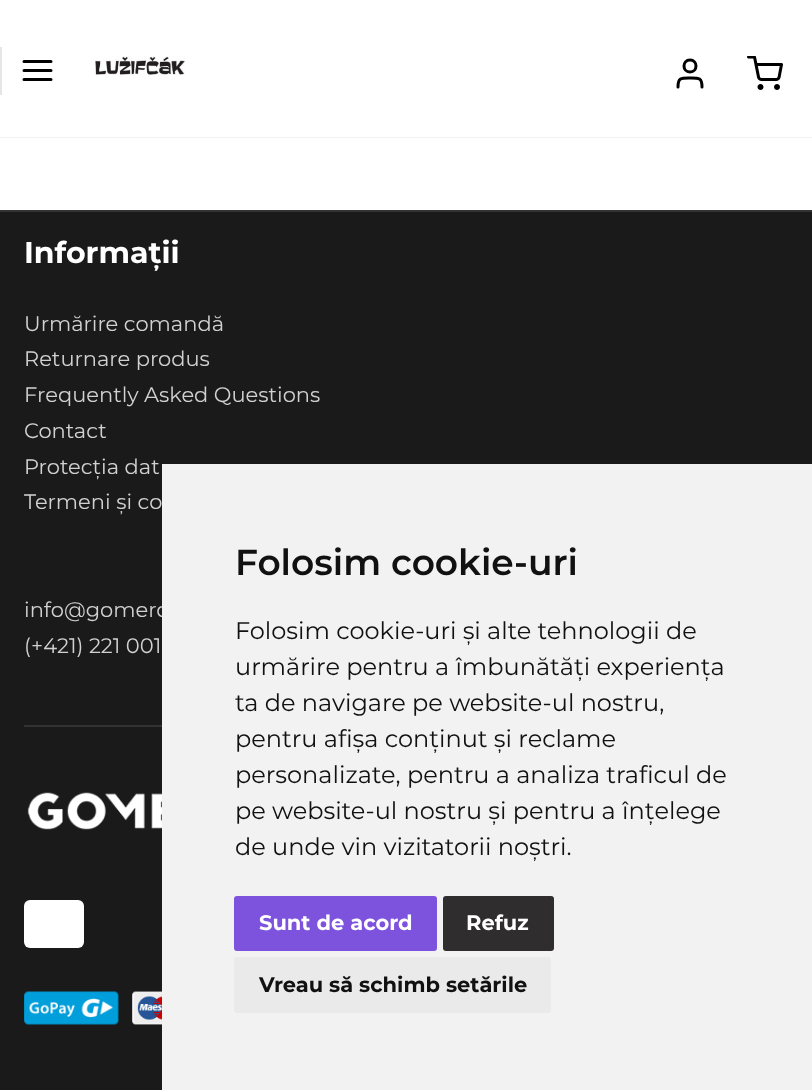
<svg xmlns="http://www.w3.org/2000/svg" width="812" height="1090">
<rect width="100%" height="100%" fill="#fff"/>
<rect y="47" width="2" height="48" fill="#e6e6e6"/>
<path d="M24 70.5h27m-27-9h27m-27 18h27" fill="none" stroke="#000" stroke-width="3" stroke-linecap="round" stroke-linejoin="round"/>
<image x="95" y="56" width="90" height="19" href="media/1.png"/>
<path d="M702 87c0-9.5-3.5-9-12-9c-8.5 0-12-.5-12 9m12-15c8 0 8-12 0-12c-8 0-8 12 0 12z" fill="none" stroke="#000" stroke-width="3" stroke-linecap="round" stroke-linejoin="round"/>
<image x="747" y="56" width="36" height="34" href="media/2.png"/>
<rect y="137" width="812" height="1" fill="#f2f1f1"/>
<rect y="212" width="812" height="878" fill="#1a1a1a"/>
<rect y="210" width="812" height="2" fill="#333"/>
<text x="24" y="263" style="font-family:Montserrat;font-size:30px;font-weight:bold;fill:#fff">Informații</text>
<text x="24" y="331" style="font-family:Montserrat;font-size:21px;fill:#d1d1d1">Urmărire comandă</text>
<text x="24" y="366" style="font-family:Montserrat;font-size:21px;fill:#d1d1d1">Returnare produs</text>
<text x="24" y="402" style="font-family:Montserrat;font-size:21px;fill:#d1d1d1">Frequently Asked Questions</text>
<text x="24" y="438" style="font-family:Montserrat;font-size:21px;fill:#d1d1d1">Contact</text>
<text x="24" y="474" style="font-family:Montserrat;font-size:21px;fill:#d1d1d1">Protecția dat</text>
<text x="24" y="509" style="font-family:Montserrat;font-size:21px;fill:#d1d1d1">Termeni și co</text>
<text x="24" y="617" style="font-family:Montserrat;font-size:21px;fill:#d1d1d1">info@gomerc</text>
<text x="24" y="653" style="font-family:Montserrat;font-size:21px;fill:#d1d1d1">(+421) 221 001</text>
<rect x="24" y="725" width="138" height="2" fill="#333"/>
<image x="27" y="792" width="135" height="38" href="media/3.png"/>
<rect x="24" y="900" width="60" height="48" rx="6" fill="#fff"/>
<image x="24" y="991" width="95" height="34" href="media/4.png"/>
<image x="132" y="991" width="30" height="34" href="media/5.png"/>
<rect x="162" y="464" width="650" height="626" fill="#f2f2f2"/>
<text x="235" y="575" style="font-family:Montserrat;font-size:36px;font-weight:600;fill:#111">Folosim cookie-uri</text>
<text x="235" y="639" style="font-family:Montserrat;font-size:24px;fill:#111">Folosim cookie-uri și alte tehnologii de</text>
<text x="235" y="675" style="font-family:Montserrat;font-size:24px;fill:#111">urmărire pentru a îmbunătăți experiența</text>
<text x="235" y="711" style="font-family:Montserrat;font-size:24px;fill:#111">ta de navigare pe website-ul nostru,</text>
<text x="235" y="747" style="font-family:Montserrat;font-size:24px;fill:#111">pentru afișa conținut și reclame</text>
<text x="235" y="783" style="font-family:Montserrat;font-size:24px;fill:#111">personalizate, pentru a analiza traficul de</text>
<text x="235" y="819" style="font-family:Montserrat;font-size:24px;fill:#111">pe website-ul nostru și pentru a înțelege</text>
<text x="235" y="855" style="font-family:Montserrat;font-size:24px;fill:#111">de unde vin vizitatorii noștri.</text>
<rect x="234" y="896" width="203" height="55" rx="3" fill="#7d53de"/>
<text x="259" y="930" style="font-family:Montserrat;font-size:21px;font-weight:bold;fill:#fff">Sunt de acord</text>
<rect x="443" y="896" width="111" height="55" rx="3" fill="#2f2d2d"/>
<text x="466" y="930" style="font-family:Montserrat;font-size:21px;font-weight:bold;fill:#fff">Refuz</text>
<rect x="234" y="957" width="317" height="56" rx="3" fill="#eaeaea"/>
<text x="259" y="992" style="font-family:Montserrat;font-size:21px;font-weight:bold;fill:#111">Vreau să schimb setările</text>
</svg>
